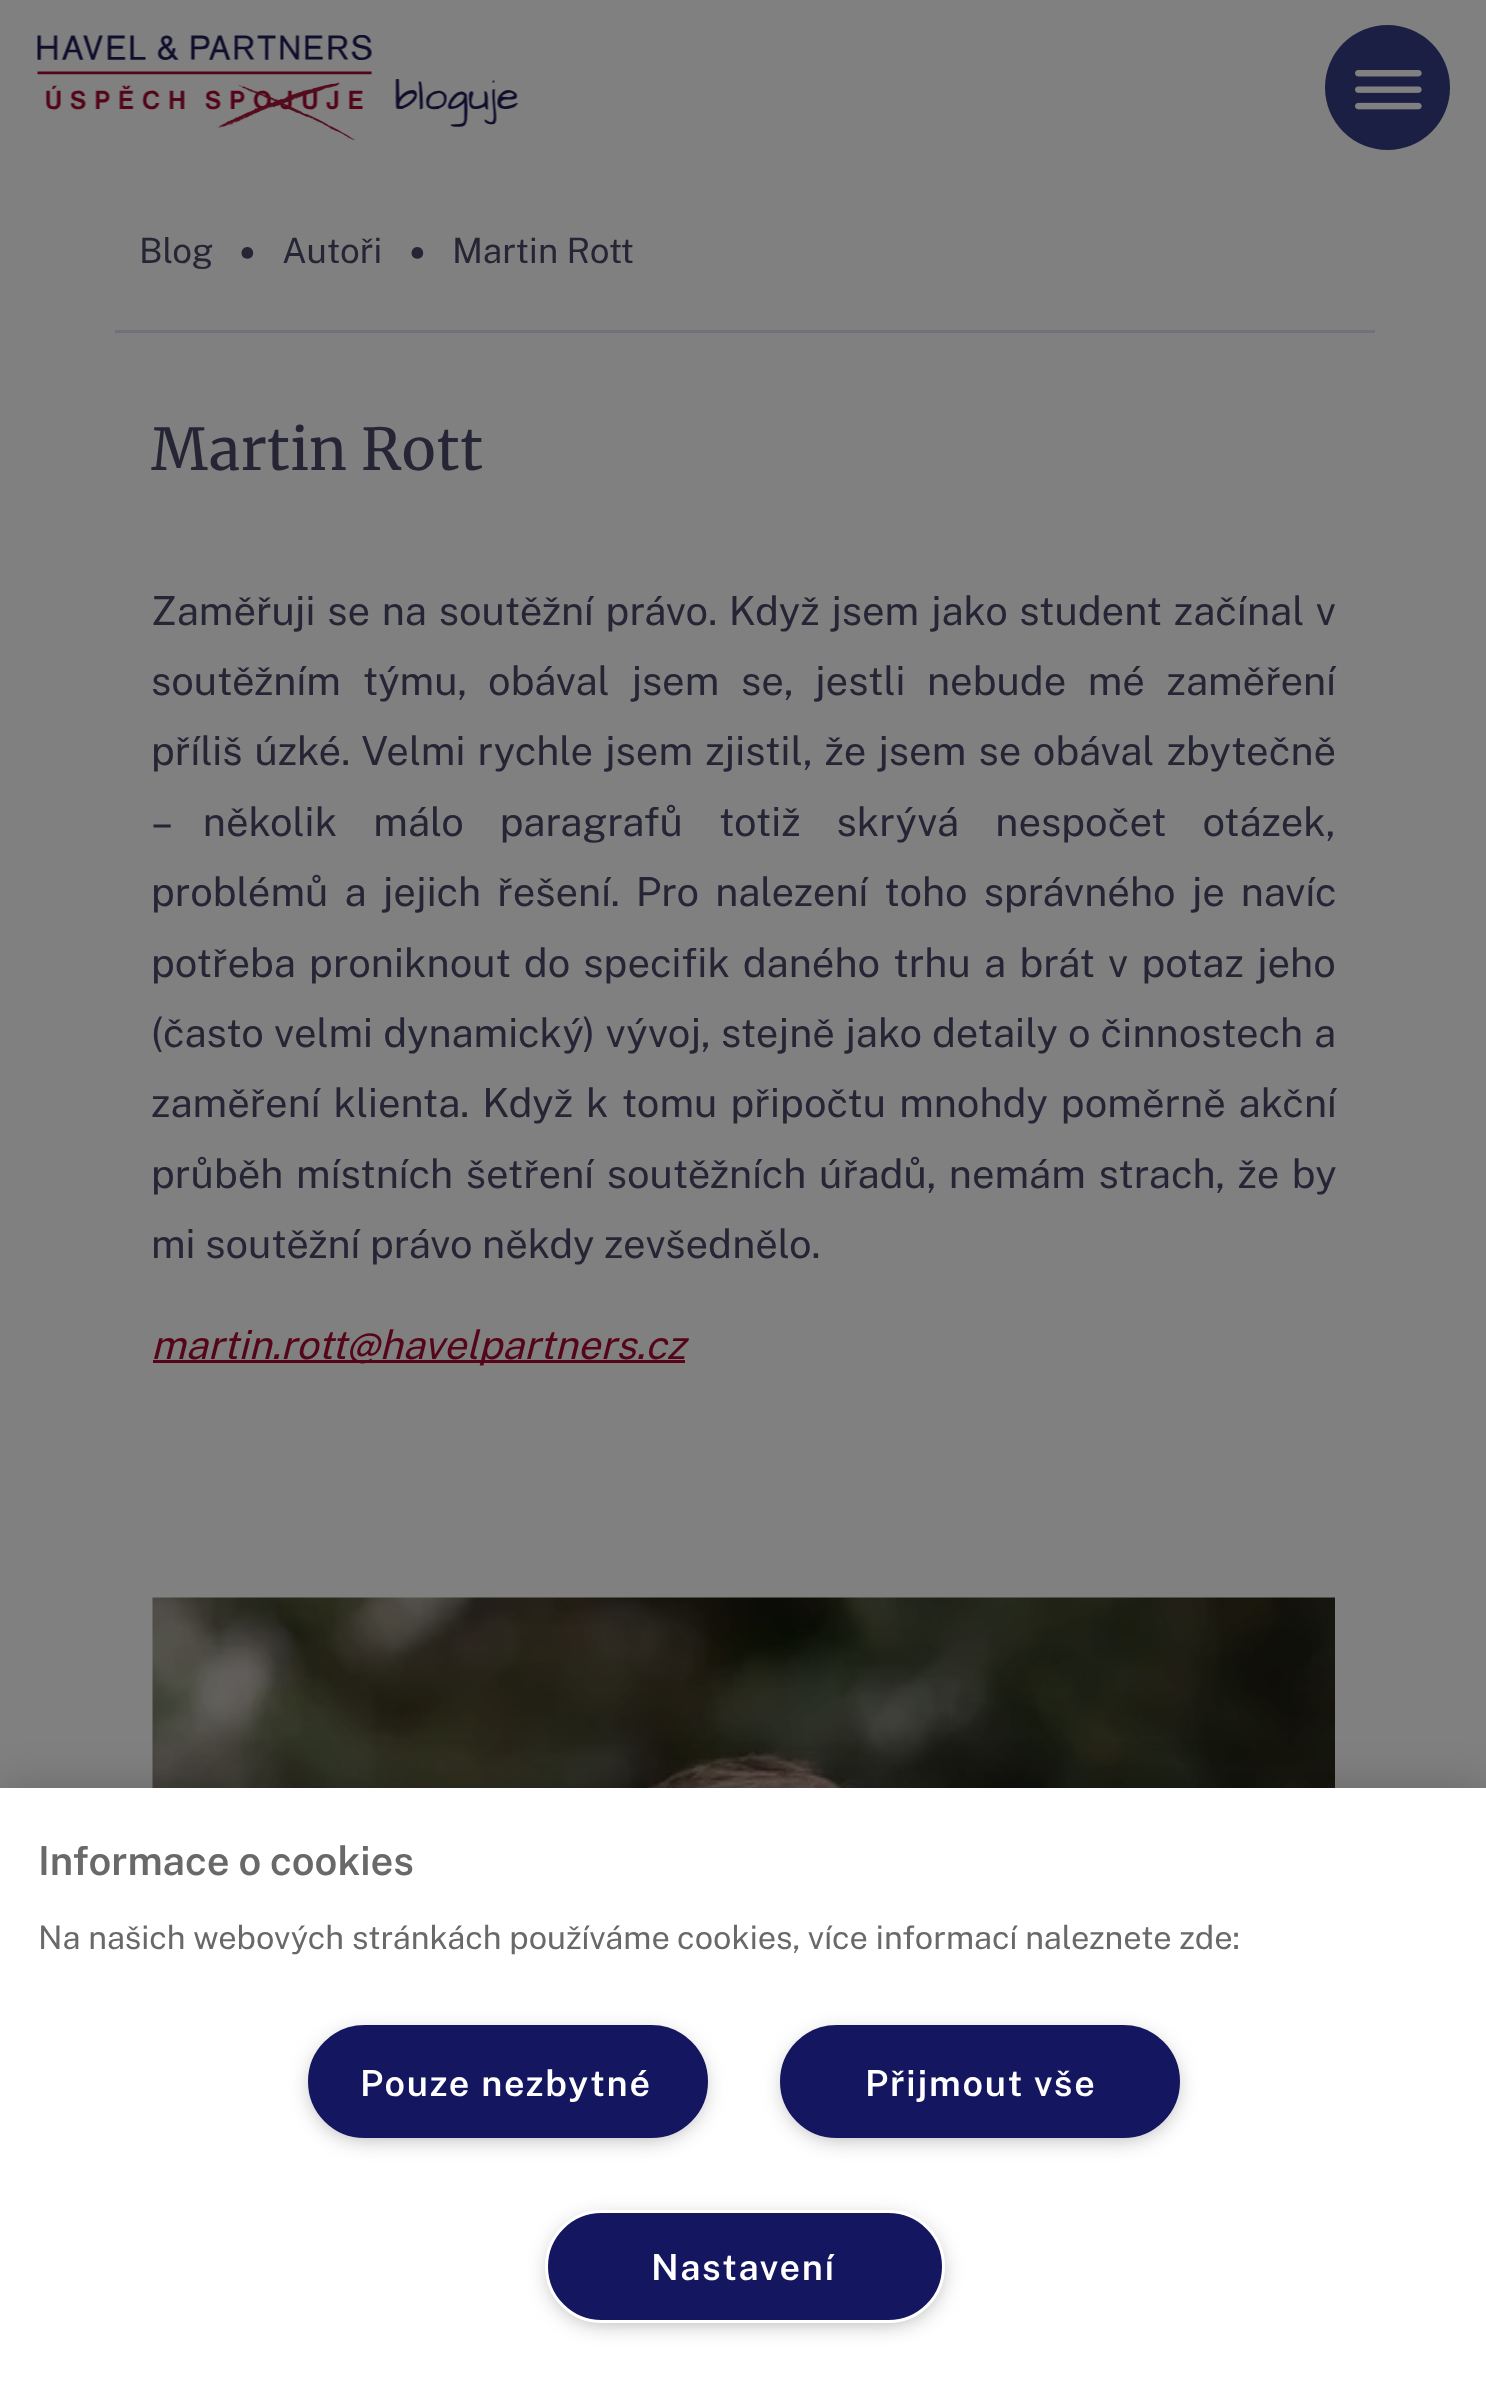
<svg xmlns="http://www.w3.org/2000/svg" width="1486" height="2386">
<rect width="100%" height="100%" fill="#808080"/>
<image x="37" y="35" width="481" height="105" href="media/1.png"/>
<circle cx="1387.5" cy="87.5" r="62.5" fill="#1b1f43"/>
<image x="1355" y="70" width="67" height="40" href="media/2.png"/>
<rect x="115" y="330" width="1260" height="3" fill="#71717a"/>
<text x="139" y="263" style="font-family:Public Sans;font-size:35px;fill:#262535">Blog</text>
<text x="238" y="275" style="font-family:Public Sans;font-size:60px;fill:#262535">•</text>
<text x="282" y="263" style="font-family:Public Sans;font-size:35px;fill:#262535">Autoři</text>
<text x="408" y="275" style="font-family:Public Sans;font-size:60px;fill:#262535">•</text>
<text x="452" y="263" style="font-family:Public Sans;font-size:35px;fill:#262535">Martin Rott</text>
<text x="151" y="470" style="font-family:Merriweather;font-size:57.5px;fill:#262535">Martin Rott</text>
<text x="151" y="625" word-spacing="2.1" style="font-family:Public Sans;font-size:40px;fill:#262535">Zaměřuji se na soutěžní právo. Když jsem jako student začínal v</text>
<text x="151" y="695" word-spacing="12" style="font-family:Public Sans;font-size:40px;fill:#262535">soutěžním týmu, obával jsem se, jestli nebude mé zaměření</text>
<text x="151" y="765" word-spacing="2.5" style="font-family:Public Sans;font-size:40px;fill:#262535">příliš úzké. Velmi rychle jsem zjistil, že jsem se obával zbytečně</text>
<text x="151" y="836" word-spacing="26.5" style="font-family:Public Sans;font-size:40px;fill:#262535">– několik málo paragrafů totiž skrývá nespočet otázek,</text>
<text x="151" y="906" word-spacing="6.5" style="font-family:Public Sans;font-size:40px;fill:#262535">problémů a jejich řešení. Pro nalezení toho správného je navíc</text>
<text x="151" y="977" word-spacing="3.6" style="font-family:Public Sans;font-size:40px;fill:#262535">potřeba proniknout do specifik daného trhu a brát v potaz jeho</text>
<text x="151" y="1047" word-spacing="1" style="font-family:Public Sans;font-size:40px;fill:#262535">(často velmi dynamický) vývoj, stejně jako detaily o činnostech a</text>
<text x="151" y="1117" word-spacing="3.5" style="font-family:Public Sans;font-size:40px;fill:#262535">zaměření klienta. Když k tomu připočtu mnohdy poměrně akční</text>
<text x="151" y="1188" word-spacing="3" style="font-family:Public Sans;font-size:40px;fill:#262535">průběh místních šetření soutěžních úřadů, nemám strach, že by</text>
<text x="151" y="1258" style="font-family:Public Sans;font-size:40px;fill:#262535">mi soutěžní právo někdy zevšednělo.</text>
<rect x="153" y="1360" width="532" height="3" fill="#540519"/>
<text x="151" y="1359" style="font-family:Public Sans;font-size:40px;font-style:italic;fill:#540519">martin.rott@havelpartners.cz</text>
<image x="152" y="1597" width="1183" height="191" href="media/3.png"/>
<rect y="1788" width="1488" height="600" fill="#00000033" filter="blur(22.5px)"/>
<rect y="1788" width="1486" height="598" fill="#fff"/>
<text x="38" y="1875" style="font-family:Public Sans;font-size:40px;font-weight:600;fill:#696969">Informace o cookies</text>
<text x="38" y="1949" style="font-family:Public Sans;font-size:32.5px;fill:#696969">Na našich webových stránkách používáme cookies, více informací naleznete zde:</text>
<rect x="315" y="2038" width="385" height="97" rx="48.5" fill="#999" filter="blur(12.5px)"/>
<rect x="309.5" y="2026.5" width="397" height="110" rx="55" fill="#141760" stroke="#141760" stroke-width="3"/>
<text x="360" y="2096" style="font-family:Public Sans;font-size:36px;font-weight:600;letter-spacing:1.75px;fill:#fff">Pouze nezbytné</text>
<rect x="788" y="2038" width="385" height="97" rx="48.5" fill="#999" filter="blur(12.5px)"/>
<rect x="781.5" y="2026.5" width="397" height="110" rx="55" fill="#141760" stroke="#141760" stroke-width="3"/>
<text x="865" y="2096" style="font-family:Public Sans;font-size:36px;font-weight:600;letter-spacing:1.75px;fill:#fff">Přijmout vše</text>
<rect x="553" y="2223" width="385" height="97" rx="48.5" fill="#999" filter="blur(12.5px)"/>
<rect x="546.5" y="2211.5" width="397" height="110" rx="55" fill="#141760" stroke="#fff" stroke-width="3"/>
<text x="651" y="2280" style="font-family:Public Sans;font-size:36px;font-weight:600;letter-spacing:1.75px;fill:#fff">Nastavení</text>
</svg>
